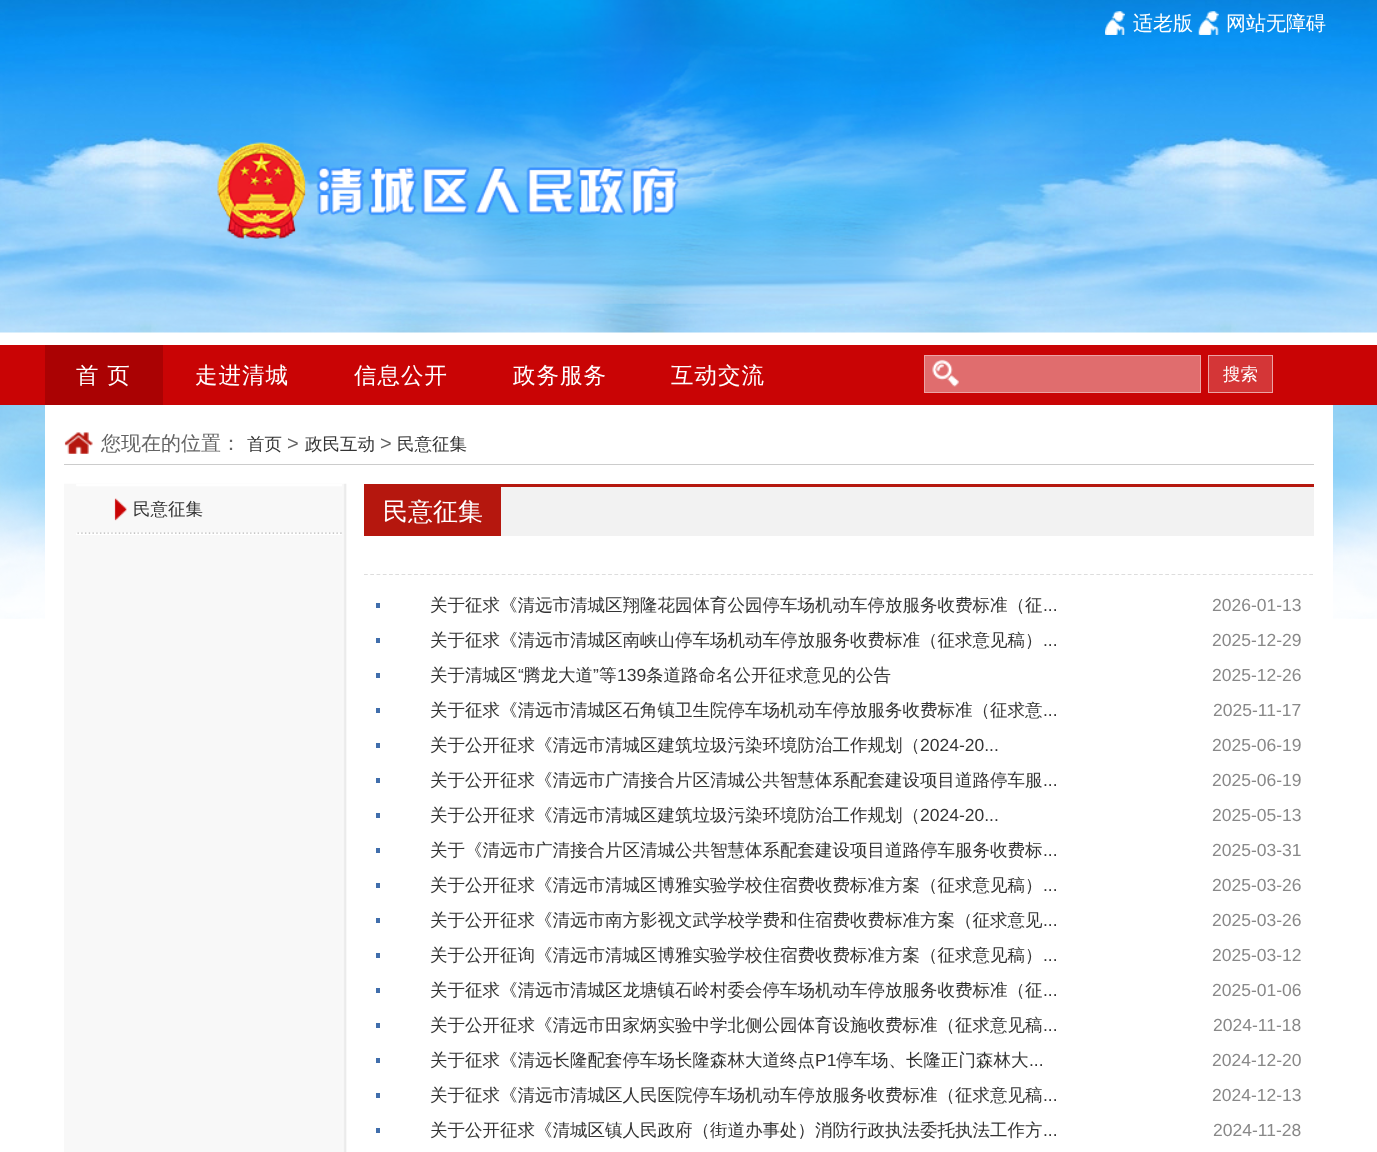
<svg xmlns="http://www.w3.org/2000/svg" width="1377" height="1152">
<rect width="100%" height="100%" fill="#fff"/>
<image x="0" y="0" width="1377" height="619" href="media/1.png"/>
<image x="1105" y="11" width="20" height="24" href="media/2.png"/>
<text x="1133" y="30" style="font-family:WenQuanYi Zen Hei;font-size:20px;font-weight:500;fill:#fff">适老版</text>
<image x="1198" y="11" width="21" height="24" href="media/3.png"/>
<text x="1226" y="30" style="font-family:WenQuanYi Zen Hei;font-size:20px;font-weight:500;fill:#fff">网站无障碍</text>
<image x="217" y="142" width="462" height="97" href="media/4.png"/>
<rect y="345" width="1377" height="60" fill="#c90405"/>
<rect x="45" y="345" width="118" height="60" fill="#aa0203"/>
<text x="76" y="383" style="font-family:WenQuanYi Zen Hei;font-size:22.5px;font-weight:500;letter-spacing:1px;fill:#fff">首 页</text>
<text x="195" y="383" style="font-family:WenQuanYi Zen Hei;font-size:22.5px;font-weight:500;letter-spacing:1px;fill:#fff">走进清城</text>
<text x="354" y="383" style="font-family:WenQuanYi Zen Hei;font-size:22.5px;font-weight:500;letter-spacing:1px;fill:#fff">信息公开</text>
<text x="513" y="383" style="font-family:WenQuanYi Zen Hei;font-size:22.5px;font-weight:500;letter-spacing:1px;fill:#fff">政务服务</text>
<text x="671" y="383" style="font-family:WenQuanYi Zen Hei;font-size:22.5px;font-weight:500;letter-spacing:1px;fill:#fff">互动交流</text>
<rect x="925" y="356" width="275" height="36" fill="#e06d6e"/>
<image x="932" y="359" width="27" height="28" href="media/5.png"/>
<rect x="924.5" y="355.5" width="276" height="37" fill="none" stroke="#eca4a5"/>
<rect x="1208.5" y="355.5" width="64" height="37" fill="#d43637" stroke="#eca4a5"/>
<text x="1223" y="380" style="font-family:WenQuanYi Zen Hei;font-size:17.5px;font-weight:500;fill:#fff">搜索</text>
<rect x="45" y="405" width="1288" height="214" fill="#fff"/>
<image x="64" y="432" width="29" height="22" href="media/6.png"/>
<rect x="64" y="464" width="1250" height="1" fill="#ccc"/>
<text x="101" y="450" style="font-family:WenQuanYi Zen Hei;font-size:20px;font-weight:500;fill:#646464">您现在的位置：</text>
<text x="247" y="450" style="font-family:WenQuanYi Zen Hei;font-size:17.5px;font-weight:500;fill:#333">首页</text>
<text x="287" y="450" style="font-family:Liberation Sans;font-size:20px;fill:#646464">&gt;</text>
<text x="305" y="450" style="font-family:WenQuanYi Zen Hei;font-size:17.5px;font-weight:500;fill:#333">政民互动</text>
<text x="380" y="450" style="font-family:Liberation Sans;font-size:20px;fill:#646464">&gt;</text>
<text x="397" y="450" style="font-family:WenQuanYi Zen Hei;font-size:17.5px;font-weight:500;fill:#333">民意征集</text>
<image x="64" y="483" width="283" height="669" href="media/7.png"/>
<image x="76" y="484" width="266" height="51" href="media/8.png"/>
<image x="114" y="498" width="13" height="23" href="media/9.png"/>
<text x="133" y="515" style="font-family:WenQuanYi Zen Hei;font-size:17.5px;font-weight:500;fill:#333">民意征集</text>
<rect x="501" y="487" width="813" height="49" fill="#f2f2f2"/>
<rect x="364" y="484" width="950" height="3" fill="#b5170e"/>
<rect x="364" y="487" width="137" height="49" fill="#b5170e"/>
<text x="383" y="520" style="font-family:WenQuanYi Zen Hei;font-size:25px;font-weight:500;fill:#fff">民意征集</text>
<path d="M364 574.5h950" fill="none" stroke="#ddd" stroke-width="1.2" stroke-dasharray="3.75 2.51"/>
<rect x="376" y="603" width="4" height="5" fill="#406eac"/>
<text x="430" y="611" style="font-family:WenQuanYi Zen Hei;font-size:17.5px;font-weight:500;fill:#333">关于征求《清远市清城区翔隆花园体育公园停车场机动车停放服务收费标准（征</text>
<text x="1043" y="611" style="font-family:Liberation Sans;font-size:17.5px;fill:#333">...</text>
<text x="1212" y="611" style="font-family:Liberation Sans;font-size:17.5px;fill:#888">2026-01-13</text>
<rect x="376" y="638" width="4" height="5" fill="#406eac"/>
<text x="430" y="646" style="font-family:WenQuanYi Zen Hei;font-size:17.5px;font-weight:500;fill:#333">关于征求《清远市清城区南峡山停车场机动车停放服务收费标准（征求意见稿）</text>
<text x="1043" y="646" style="font-family:Liberation Sans;font-size:17.5px;fill:#333">...</text>
<text x="1212" y="646" style="font-family:Liberation Sans;font-size:17.5px;fill:#888">2025-12-29</text>
<rect x="376" y="673" width="4" height="5" fill="#406eac"/>
<text x="430" y="681" style="font-family:WenQuanYi Zen Hei;font-size:17.5px;font-weight:500;fill:#333">关于清城区</text>
<text x="518" y="681" style="font-family:Liberation Sans;font-size:17.5px;fill:#333">“</text>
<text x="523" y="681" style="font-family:WenQuanYi Zen Hei;font-size:17.5px;font-weight:500;fill:#333">腾龙大道</text>
<text x="593" y="681" style="font-family:Liberation Sans;font-size:17.5px;fill:#333">”</text>
<text x="599" y="681" style="font-family:WenQuanYi Zen Hei;font-size:17.5px;font-weight:500;fill:#333">等</text>
<text x="617" y="681" style="font-family:Liberation Sans;font-size:17.5px;fill:#333">139</text>
<text x="646" y="681" style="font-family:WenQuanYi Zen Hei;font-size:17.5px;font-weight:500;fill:#333">条道路命名公开征求意见的公告</text>
<text x="1212" y="681" style="font-family:Liberation Sans;font-size:17.5px;fill:#888">2025-12-26</text>
<rect x="376" y="708" width="4" height="5" fill="#406eac"/>
<text x="430" y="716" style="font-family:WenQuanYi Zen Hei;font-size:17.5px;font-weight:500;fill:#333">关于征求《清远市清城区石角镇卫生院停车场机动车停放服务收费标准（征求意</text>
<text x="1043" y="716" style="font-family:Liberation Sans;font-size:17.5px;fill:#333">...</text>
<text x="1213" y="716" style="font-family:Liberation Sans;font-size:17.5px;fill:#888">2025-11-17</text>
<rect x="376" y="743" width="4" height="5" fill="#406eac"/>
<text x="430" y="751" style="font-family:WenQuanYi Zen Hei;font-size:17.5px;font-weight:500;fill:#333">关于公开征求《清远市清城区建筑垃圾污染环境防治工作规划（</text>
<text x="920" y="751" style="font-family:Liberation Sans;font-size:17.5px;fill:#333">2024-20...</text>
<text x="1212" y="751" style="font-family:Liberation Sans;font-size:17.5px;fill:#888">2025-06-19</text>
<rect x="376" y="778" width="4" height="5" fill="#406eac"/>
<text x="430" y="786" style="font-family:WenQuanYi Zen Hei;font-size:17.5px;font-weight:500;fill:#333">关于公开征求《清远市广清接合片区清城公共智慧体系配套建设项目道路停车服</text>
<text x="1043" y="786" style="font-family:Liberation Sans;font-size:17.5px;fill:#333">...</text>
<text x="1212" y="786" style="font-family:Liberation Sans;font-size:17.5px;fill:#888">2025-06-19</text>
<rect x="376" y="813" width="4" height="5" fill="#406eac"/>
<text x="430" y="821" style="font-family:WenQuanYi Zen Hei;font-size:17.5px;font-weight:500;fill:#333">关于公开征求《清远市清城区建筑垃圾污染环境防治工作规划（</text>
<text x="920" y="821" style="font-family:Liberation Sans;font-size:17.5px;fill:#333">2024-20...</text>
<text x="1212" y="821" style="font-family:Liberation Sans;font-size:17.5px;fill:#888">2025-05-13</text>
<rect x="376" y="848" width="4" height="5" fill="#406eac"/>
<text x="430" y="856" style="font-family:WenQuanYi Zen Hei;font-size:17.5px;font-weight:500;fill:#333">关于《清远市广清接合片区清城公共智慧体系配套建设项目道路停车服务收费标</text>
<text x="1043" y="856" style="font-family:Liberation Sans;font-size:17.5px;fill:#333">...</text>
<text x="1212" y="856" style="font-family:Liberation Sans;font-size:17.5px;fill:#888">2025-03-31</text>
<rect x="376" y="883" width="4" height="5" fill="#406eac"/>
<text x="430" y="891" style="font-family:WenQuanYi Zen Hei;font-size:17.5px;font-weight:500;fill:#333">关于公开征求《清远市清城区博雅实验学校住宿费收费标准方案（征求意见稿）</text>
<text x="1043" y="891" style="font-family:Liberation Sans;font-size:17.5px;fill:#333">...</text>
<text x="1212" y="891" style="font-family:Liberation Sans;font-size:17.5px;fill:#888">2025-03-26</text>
<rect x="376" y="918" width="4" height="5" fill="#406eac"/>
<text x="430" y="926" style="font-family:WenQuanYi Zen Hei;font-size:17.5px;font-weight:500;fill:#333">关于公开征求《清远市南方影视文武学校学费和住宿费收费标准方案（征求意见</text>
<text x="1043" y="926" style="font-family:Liberation Sans;font-size:17.5px;fill:#333">...</text>
<text x="1212" y="926" style="font-family:Liberation Sans;font-size:17.5px;fill:#888">2025-03-26</text>
<rect x="376" y="953" width="4" height="5" fill="#406eac"/>
<text x="430" y="961" style="font-family:WenQuanYi Zen Hei;font-size:17.5px;font-weight:500;fill:#333">关于公开征询《清远市清城区博雅实验学校住宿费收费标准方案（征求意见稿）</text>
<text x="1043" y="961" style="font-family:Liberation Sans;font-size:17.5px;fill:#333">...</text>
<text x="1212" y="961" style="font-family:Liberation Sans;font-size:17.5px;fill:#888">2025-03-12</text>
<rect x="376" y="988" width="4" height="5" fill="#406eac"/>
<text x="430" y="996" style="font-family:WenQuanYi Zen Hei;font-size:17.5px;font-weight:500;fill:#333">关于征求《清远市清城区龙塘镇石岭村委会停车场机动车停放服务收费标准（征</text>
<text x="1043" y="996" style="font-family:Liberation Sans;font-size:17.5px;fill:#333">...</text>
<text x="1212" y="996" style="font-family:Liberation Sans;font-size:17.5px;fill:#888">2025-01-06</text>
<rect x="376" y="1023" width="4" height="5" fill="#406eac"/>
<text x="430" y="1031" style="font-family:WenQuanYi Zen Hei;font-size:17.5px;font-weight:500;fill:#333">关于公开征求《清远市田家炳实验中学北侧公园体育设施收费标准（征求意见稿</text>
<text x="1043" y="1031" style="font-family:Liberation Sans;font-size:17.5px;fill:#333">...</text>
<text x="1213" y="1031" style="font-family:Liberation Sans;font-size:17.5px;fill:#888">2024-11-18</text>
<rect x="376" y="1058" width="4" height="5" fill="#406eac"/>
<text x="430" y="1066" style="font-family:WenQuanYi Zen Hei;font-size:17.5px;font-weight:500;fill:#333">关于征求《清远长隆配套停车场长隆森林大道终点</text>
<text x="815" y="1066" style="font-family:Liberation Sans;font-size:17.5px;fill:#333">P1</text>
<text x="836" y="1066" style="font-family:WenQuanYi Zen Hei;font-size:17.5px;font-weight:500;fill:#333">停车场、长隆正门森林大</text>
<text x="1029" y="1066" style="font-family:Liberation Sans;font-size:17.5px;fill:#333">...</text>
<text x="1212" y="1066" style="font-family:Liberation Sans;font-size:17.5px;fill:#888">2024-12-20</text>
<rect x="376" y="1093" width="4" height="5" fill="#406eac"/>
<text x="430" y="1101" style="font-family:WenQuanYi Zen Hei;font-size:17.5px;font-weight:500;fill:#333">关于征求《清远市清城区人民医院停车场机动车停放服务收费标准（征求意见稿</text>
<text x="1043" y="1101" style="font-family:Liberation Sans;font-size:17.5px;fill:#333">...</text>
<text x="1212" y="1101" style="font-family:Liberation Sans;font-size:17.5px;fill:#888">2024-12-13</text>
<rect x="376" y="1128" width="4" height="5" fill="#406eac"/>
<text x="430" y="1136" style="font-family:WenQuanYi Zen Hei;font-size:17.5px;font-weight:500;fill:#333">关于公开征求《清城区镇人民政府（街道办事处）消防行政执法委托执法工作方</text>
<text x="1043" y="1136" style="font-family:Liberation Sans;font-size:17.5px;fill:#333">...</text>
<text x="1213" y="1136" style="font-family:Liberation Sans;font-size:17.5px;fill:#888">2024-11-28</text>
</svg>
